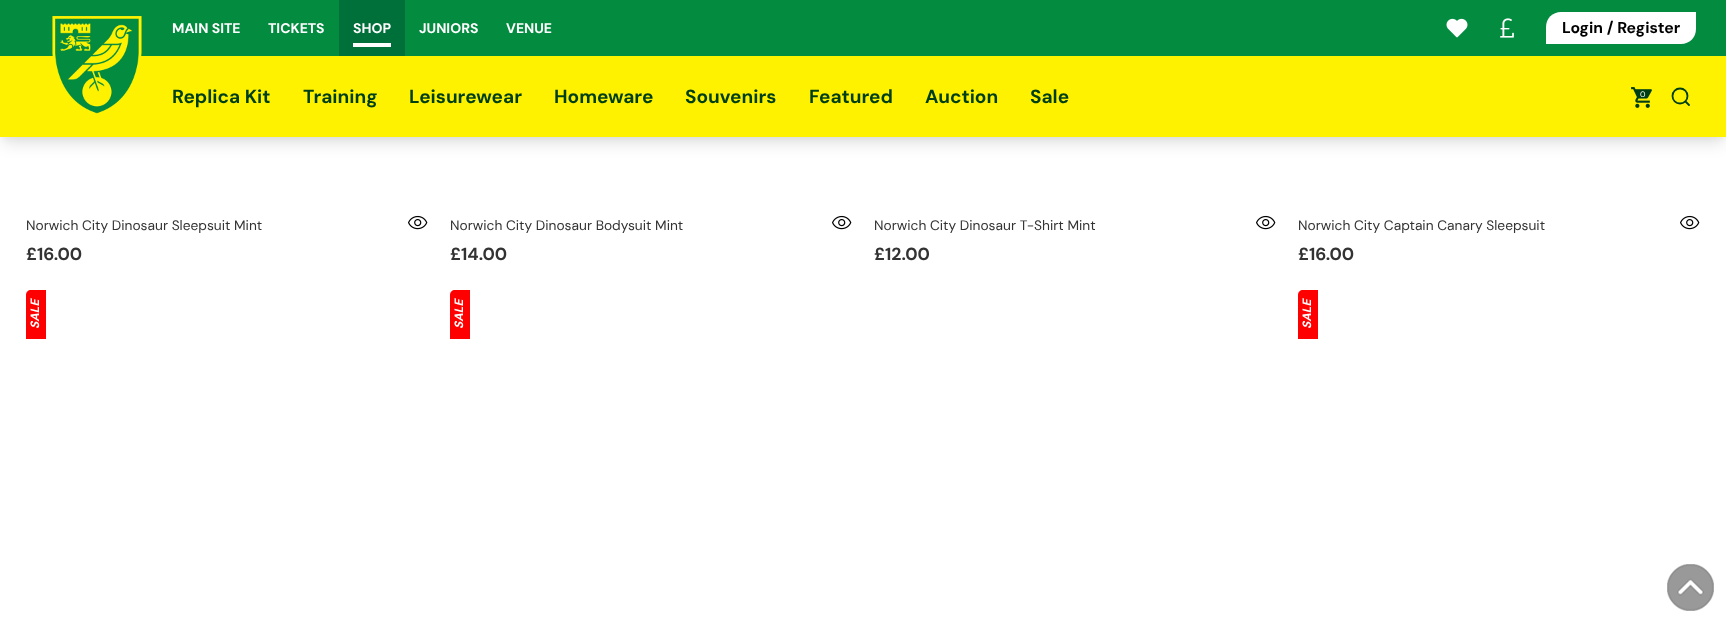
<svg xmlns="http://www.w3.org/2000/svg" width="1726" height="623">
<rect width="100%" height="100%" fill="#fff"/>
<rect x="2" y="6" width="1722" height="133" fill="#0000000d" filter="blur(3px)"/>
<rect x="3" y="13" width="1720" height="131" fill="#0000001a" filter="blur(7.5px)"/>
<rect width="1726" height="56" fill="#038c40"/>
<rect y="56" width="1726" height="81" fill="#fff200"/>
<text x="172" y="33" style="font-family:DM Sans;font-size:14px;font-weight:bold;fill:#fff">MAIN SITE</text>
<text x="268" y="33" style="font-family:DM Sans;font-size:14px;font-weight:bold;fill:#fff">TICKETS</text>
<rect x="339" width="66" height="56" fill="#00703b"/>
<text x="353" y="33" style="font-family:DM Sans;font-size:14px;font-weight:bold;fill:#fff">SHOP</text>
<rect x="353" y="43" width="38" height="4" fill="#fff"/>
<text x="419" y="33" style="font-family:DM Sans;font-size:14px;font-weight:bold;fill:#fff">JUNIORS</text>
<text x="506" y="33" style="font-family:DM Sans;font-size:14px;font-weight:bold;fill:#fff">VENUE</text>
<image x="1446" y="18" width="22" height="20" href="media/1.png"/>
<image x="1500" y="18" width="14" height="20" href="media/2.png"/>
<path d="M1561 12h135v17c0 8.5-6.5 15-15 15h-135v-17c0-8.5 6.5-15 15-15z" fill="#fff"/>
<text x="1562" y="33" style="font-family:DM Sans;font-size:15.75px;font-weight:bold;fill:#000">Login / Register</text>
<image x="52" y="16" width="90" height="98" href="media/3.png"/>
<text x="172" y="103" style="font-family:DM Sans;font-size:19px;font-weight:bold;fill:#003e14">Replica Kit</text>
<text x="303" y="103" style="font-family:DM Sans;font-size:19px;font-weight:bold;fill:#003e14">Training</text>
<text x="409" y="103" style="font-family:DM Sans;font-size:19px;font-weight:bold;fill:#003e14">Leisurewear</text>
<text x="554" y="103" style="font-family:DM Sans;font-size:19px;font-weight:bold;fill:#003e14">Homeware</text>
<text x="685" y="103" style="font-family:DM Sans;font-size:19px;font-weight:bold;fill:#003e14">Souvenirs</text>
<text x="809" y="103" style="font-family:DM Sans;font-size:19px;font-weight:bold;fill:#003e14">Featured</text>
<text x="925" y="103" style="font-family:DM Sans;font-size:19px;font-weight:bold;fill:#003e14">Auction</text>
<text x="1030" y="103" style="font-family:DM Sans;font-size:19px;font-weight:bold;fill:#003e14">Sale</text>
<image x="1631" y="87" width="21" height="21" href="media/4.png"/>
<text x="1640" y="97" style="font-family:DM Sans;font-size:8px;fill:#fff">0</text>
<circle cx="1680" cy="96" r="7.5" fill="none" stroke="#003e14" stroke-width="1.8"/>
<path d="M1689 105l-3.5-3.5" fill="none" stroke="#003e14" stroke-width="1.8" stroke-linecap="round" stroke-linejoin="round"/>
<text x="26" y="230" style="font-family:DM Sans;font-size:13.75px;fill:#333">Norwich City Dinosaur Sleepsuit Mint</text>
<text x="26" y="260" style="font-family:DM Sans;font-size:17.5px;font-weight:bold;fill:#333">£16.00</text>
<image x="408" y="215" width="20" height="15" href="media/5.png"/>
<text x="450" y="230" style="font-family:DM Sans;font-size:13.75px;fill:#333">Norwich City Dinosaur Bodysuit Mint</text>
<text x="450" y="260" style="font-family:DM Sans;font-size:17.5px;font-weight:bold;fill:#333">£14.00</text>
<image x="832" y="215" width="20" height="15" href="media/5.png"/>
<text x="874" y="230" style="font-family:DM Sans;font-size:13.75px;fill:#333">Norwich City Dinosaur T-Shirt Mint</text>
<text x="874" y="260" style="font-family:DM Sans;font-size:17.5px;font-weight:bold;fill:#333">£12.00</text>
<image x="1256" y="215" width="20" height="15" href="media/5.png"/>
<text x="1298" y="230" style="font-family:DM Sans;font-size:13.75px;fill:#333">Norwich City Captain Canary Sleepsuit</text>
<text x="1298" y="260" style="font-family:DM Sans;font-size:17.5px;font-weight:bold;fill:#333">£16.00</text>
<image x="1680" y="215" width="20" height="15" href="media/5.png"/>
<path d="M31 290h15v49h-20v-44c0-3 2-5 5-5z" fill="#f00"/>
<text x="39" y="329" transform="rotate(-90 39 329)" style="font-family:DM Sans;font-size:12px;font-weight:bold;font-style:italic;fill:#fff">SALE</text>
<path d="M455 290h15v49h-20v-44c0-3 2-5 5-5z" fill="#f00"/>
<text x="463" y="329" transform="rotate(-90 463 329)" style="font-family:DM Sans;font-size:12px;font-weight:bold;font-style:italic;fill:#fff">SALE</text>
<path d="M1303 290h15v49h-20v-44c0-3 2-5 5-5z" fill="#f00"/>
<text x="1311" y="329" transform="rotate(-90 1311 329)" style="font-family:DM Sans;font-size:12px;font-weight:bold;font-style:italic;fill:#fff">SALE</text>
<image x="1667" y="564" width="47" height="47" href="media/6.png"/>
</svg>
